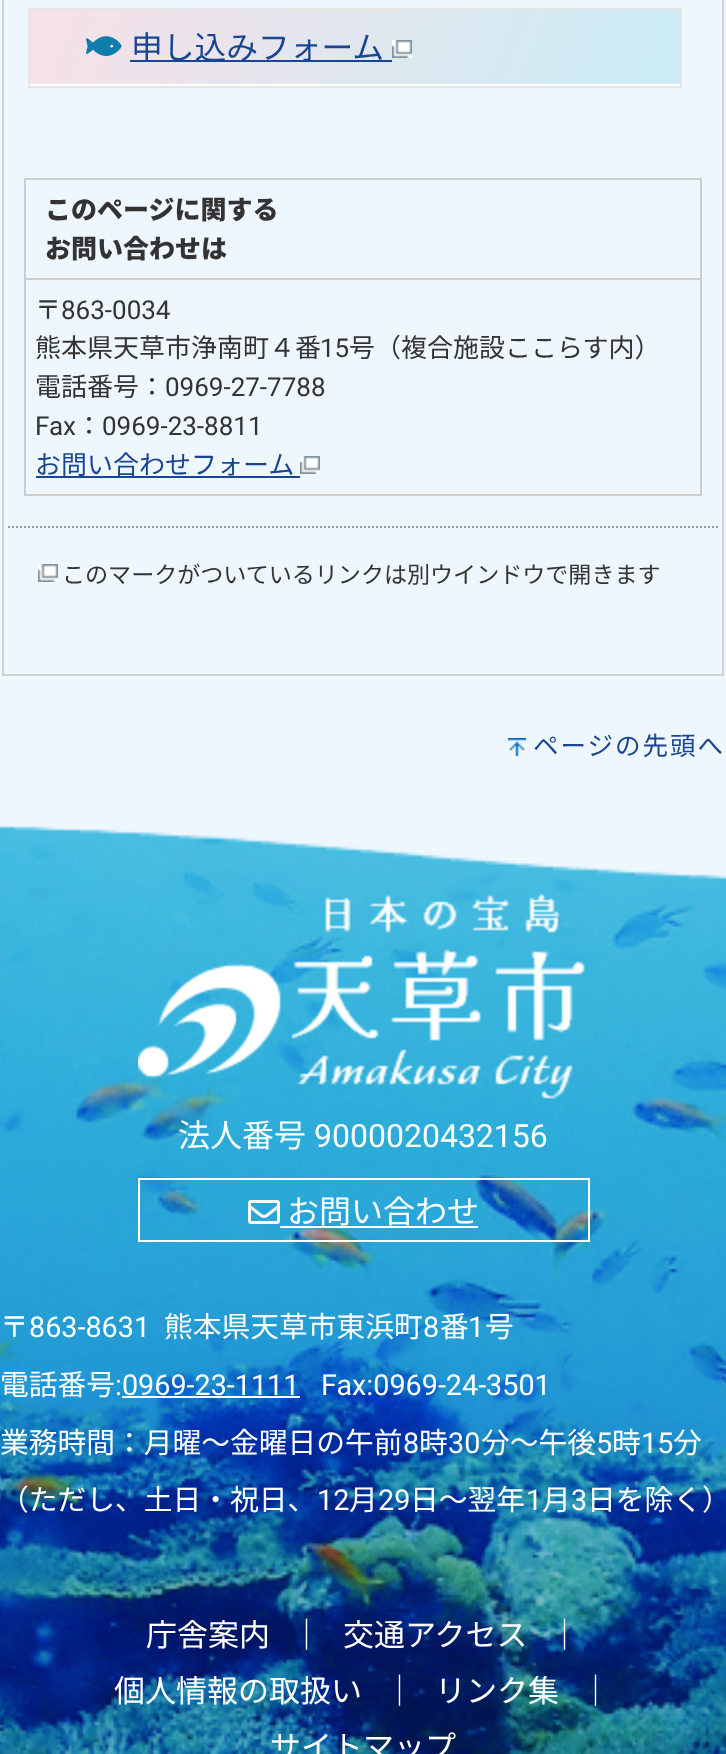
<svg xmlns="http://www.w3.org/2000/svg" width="726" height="1754">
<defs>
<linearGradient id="g1" gradientUnits="userSpaceOnUse" x1="65" y1="-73" x2="645" y2="167"><stop offset="0.06" stop-color="#f5e1e8"/><stop offset="0.96" stop-color="#cbecf5"/></linearGradient>
</defs>
<rect width="100%" height="100%" fill="#eff7fe"/>
<rect x="3" y="-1" width="720" height="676" fill="none" stroke="#d1d1d1" stroke-width="2"/>
<rect x="29" y="9" width="652" height="78" fill="none" stroke="#e5e5e5" stroke-width="2"/>
<rect x="30" y="10" width="650" height="74" fill="url(#g1)"/>
<rect x="30" y="84" width="650" height="2" fill="#fff"/>
<image x="86" y="36" width="36" height="20" href="media/1.png"/>
<rect x="130" y="60" width="262" height="2" fill="#194593"/>
<text x="131" y="59" style="font-family:Noto Sans JP;font-size:31.75px;fill:#194593">申し込みフォーム</text>
<image x="392" y="40" width="20" height="18" href="media/2.png"/>
<rect x="25" y="179" width="676" height="316" fill="none" stroke="#ccc" stroke-width="2"/>
<text x="45" y="219" style="font-family:Noto Sans JP;font-size:26px;font-weight:900;fill:#333">このページに関する</text>
<text x="45" y="258" style="font-family:Noto Sans JP;font-size:26px;font-weight:900;fill:#333">お問い合わせは</text>
<rect x="26" y="278" width="674" height="2" fill="#ccc"/>
<text x="35" y="319" style="font-family:Noto Sans JP;font-size:26px;fill:#333">〒</text>
<text x="61" y="319" style="font-family:Roboto;font-size:26px;fill:#333">863-0034</text>
<text x="35" y="357" style="font-family:Noto Sans JP;font-size:26px;fill:#333">熊本県天草市浄南町４番</text>
<text x="320" y="357" style="font-family:Roboto;font-size:26px;fill:#333">15</text>
<text x="349" y="357" style="font-family:Noto Sans JP;font-size:26px;fill:#333">号（複合施設ここらす内）</text>
<text x="35" y="396" style="font-family:Noto Sans JP;font-size:26px;fill:#333">電話番号：</text>
<text x="165" y="396" style="font-family:Roboto;font-size:26px;fill:#333">0969-27-7788</text>
<text x="35" y="435" style="font-family:Roboto;font-size:26px;fill:#333">Fax</text>
<text x="76" y="435" style="font-family:Noto Sans JP;font-size:26px;fill:#333">：</text>
<text x="102" y="435" style="font-family:Roboto;font-size:26px;fill:#333">0969-23-8811</text>
<rect x="36" y="476" width="264" height="2" fill="#194593"/>
<text x="35" y="474" style="font-family:Noto Sans JP;font-size:26px;fill:#194593">お問い合わせフォーム</text>
<image x="300" y="456" width="20" height="18" href="media/2.png"/>
<path d="M8 527h710" fill="none" stroke="#999" stroke-width="2" stroke-dasharray="2 2"/>
<image x="38" y="564" width="20" height="18" href="media/2.png"/>
<text x="62" y="583" style="font-family:Noto Sans JP;font-size:23.05px;fill:#333">このマークがついているリンクは別ウインドウで開きます</text>
<image x="508" y="738" width="18" height="18" href="media/3.png"/>
<text x="533" y="755" style="font-family:Noto Sans JP;font-size:25.5px;letter-spacing:2px;fill:#194593">ページの先頭へ</text>
<image x="0" y="824" width="726" height="930" href="media/4.png"/>
<image x="138" y="894" width="447" height="205" href="media/5.png"/>
<text x="178" y="1147" style="font-family:Noto Sans JP;font-size:32px;fill:#fff">法人番号</text>
<text x="314" y="1147" style="font-family:Roboto;font-size:32px;fill:#fff">9000020432156</text>
<rect x="139" y="1179" width="450" height="62" fill="none" stroke="#fff" stroke-width="2"/>
<image x="248" y="1200" width="32" height="24" href="media/6.png"/>
<text x="287" y="1223" style="font-family:Noto Sans JP;font-size:32px;fill:#fff">お問い合わせ</text>
<rect x="280" y="1226" width="198" height="2" fill="#fff"/>
<text x="0" y="1337" style="font-family:Noto Sans JP;font-size:28.75px;fill:#fff">〒</text>
<text x="29" y="1337" style="font-family:Roboto;font-size:28.75px;fill:#fff">863-8631</text>
<text x="164" y="1337" style="font-family:Noto Sans JP;font-size:28.75px;fill:#fff">熊本県天草市東浜町</text>
<text x="423" y="1337" style="font-family:Roboto;font-size:28.75px;fill:#fff">8</text>
<text x="440" y="1337" style="font-family:Noto Sans JP;font-size:28.75px;fill:#fff">番</text>
<text x="468" y="1337" style="font-family:Roboto;font-size:28.75px;fill:#fff">1</text>
<text x="485" y="1337" style="font-family:Noto Sans JP;font-size:28.75px;fill:#fff">号</text>
<text x="0" y="1395" style="font-family:Noto Sans JP;font-size:28.75px;fill:#fff">電話番号</text>
<text x="115" y="1395" style="font-family:Roboto;font-size:28.75px;fill:#fff">:0969-23-1111</text>
<text x="321" y="1395" style="font-family:Roboto;font-size:28.75px;fill:#fff">Fax:0969-24-3501</text>
<rect x="122" y="1396" width="178" height="2" fill="#fff"/>
<text x="0" y="1453" style="font-family:Noto Sans JP;font-size:28.75px;fill:#fff">業務時間：月曜～金曜日の午前</text>
<text x="403" y="1453" style="font-family:Roboto;font-size:28.75px;fill:#fff">8</text>
<text x="419" y="1453" style="font-family:Noto Sans JP;font-size:28.75px;fill:#fff">時</text>
<text x="448" y="1453" style="font-family:Roboto;font-size:28.75px;fill:#fff">30</text>
<text x="481" y="1453" style="font-family:Noto Sans JP;font-size:28.75px;fill:#fff">分～午後</text>
<text x="596" y="1453" style="font-family:Roboto;font-size:28.75px;fill:#fff">5</text>
<text x="612" y="1453" style="font-family:Noto Sans JP;font-size:28.75px;fill:#fff">時</text>
<text x="641" y="1453" style="font-family:Roboto;font-size:28.75px;fill:#fff">15</text>
<text x="673" y="1453" style="font-family:Noto Sans JP;font-size:28.75px;fill:#fff">分</text>
<text x="0" y="1510" style="font-family:Noto Sans JP;font-size:28.75px;fill:#fff">（ただし、土日・祝日、</text>
<text x="317" y="1510" style="font-family:Roboto;font-size:28.75px;fill:#fff">12</text>
<text x="349" y="1510" style="font-family:Noto Sans JP;font-size:28.75px;fill:#fff">月</text>
<text x="378" y="1510" style="font-family:Roboto;font-size:28.75px;fill:#fff">29</text>
<text x="410" y="1510" style="font-family:Noto Sans JP;font-size:28.75px;fill:#fff">日～翌年</text>
<text x="526" y="1510" style="font-family:Roboto;font-size:28.75px;fill:#fff">1</text>
<text x="542" y="1510" style="font-family:Noto Sans JP;font-size:28.75px;fill:#fff">月</text>
<text x="571" y="1510" style="font-family:Roboto;font-size:28.75px;fill:#fff">3</text>
<text x="587" y="1510" style="font-family:Noto Sans JP;font-size:28.75px;fill:#fff">日を除く）</text>
<text x="146" y="1646" style="font-family:Noto Sans JP;font-size:31px;fill:#fff">庁舎案内</text>
<text x="291" y="1646" style="font-family:Noto Sans JP;font-size:31px;fill:#fff">｜</text>
<text x="343" y="1646" style="font-family:Noto Sans JP;font-size:31px;fill:#fff">交通アクセス</text>
<text x="549" y="1646" style="font-family:Noto Sans JP;font-size:31px;fill:#fff">｜</text>
<text x="114" y="1702" style="font-family:Noto Sans JP;font-size:31px;fill:#fff">個人情報の取扱い</text>
<text x="384" y="1702" style="font-family:Noto Sans JP;font-size:31px;fill:#fff">｜</text>
<text x="435" y="1702" style="font-family:Noto Sans JP;font-size:31px;fill:#fff">リンク集</text>
<text x="580" y="1702" style="font-family:Noto Sans JP;font-size:31px;fill:#fff">｜</text>
<text x="270" y="1758" style="font-family:Noto Sans JP;font-size:31px;fill:#fff">サイトマップ</text>
</svg>
